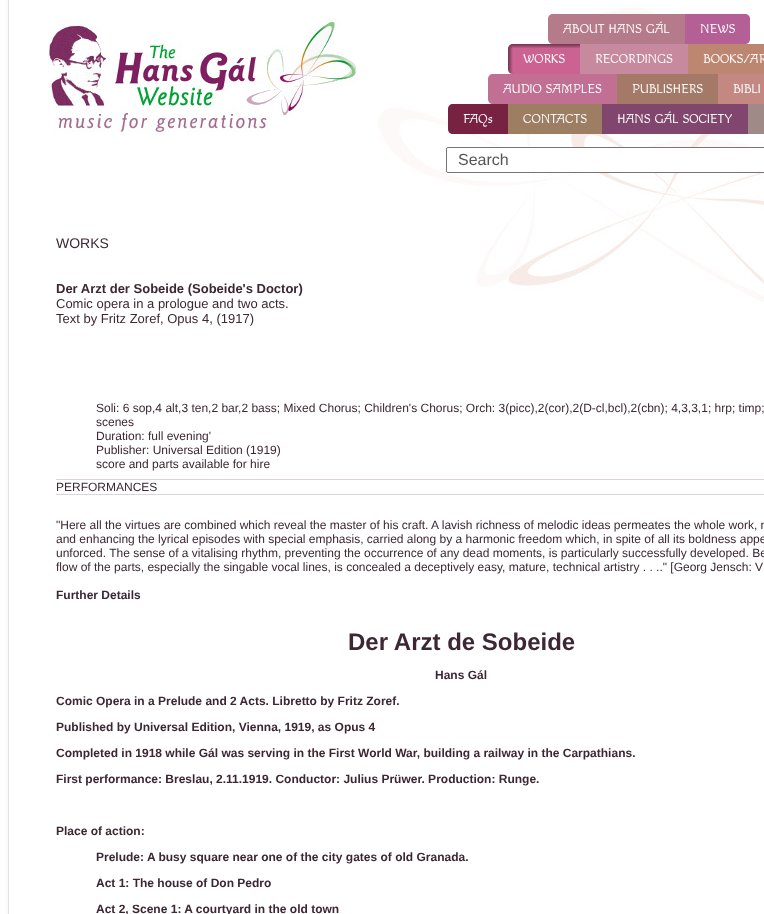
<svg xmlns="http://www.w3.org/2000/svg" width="764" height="914">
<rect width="100%" height="100%" fill="#fff"/>
<image x="5" y="0" width="4" height="4" href="media/1.png"/>
<image x="328" y="7" width="436" height="295" href="media/4.png"/>
<image x="49" y="20" width="309" height="112" href="media/2.png"/>
<image x="5" y="4" width="4" height="910" href="media/3.png"/>
<path d="M553 14h132v30h-132c-3 0-5-2-5-5v-20c0-3 2-5 5-5z" fill="#b67b8a"/>
<text x="563" y="33" style="font-family:Macondo;font-size:13px;fill:#f9f9f9">ABOUT HANS GÁL</text>
<path d="M685 14h60c3 0 5 2 5 5v20c0 3-2 5-5 5h-60z" fill="#b45f96"/>
<text x="700" y="33" style="font-family:Macondo;font-size:13px;fill:#f9f9f9">NEWS</text>
<path d="M513 44h67v30h-67c-3 0-5-2-5-5v-20c0-3 2-5 5-5z" fill="#cc6291"/>
<image x="508" y="44" width="72" height="30" href="media/5.png"/>
<text x="523" y="63" style="font-family:Macondo;font-size:13px;fill:#f9f9f9">WORKS</text>
<rect x="580" y="44" width="108" height="30" fill="#c6899e"/>
<text x="595" y="63" style="font-family:Macondo;font-size:13px;fill:#f9f9f9">RECORDINGS</text>
<rect x="688" y="44" width="76" height="30" fill="#bd8670"/>
<text x="703" y="63" style="font-family:Macondo;font-size:13px;fill:#f9f9f9">BOOKS/AR</text>
<path d="M493 74h124v30h-124c-3 0-5-2-5-5v-20c0-3 2-5 5-5z" fill="#c26f94"/>
<text x="503" y="93" style="font-family:Macondo;font-size:13px;fill:#f9f9f9">AUDIO SAMPLES</text>
<rect x="617" y="74" width="101" height="30" fill="#a47967"/>
<text x="632" y="93" style="font-family:Macondo;font-size:13px;fill:#f9f9f9">PUBLISHERS</text>
<rect x="718" y="74" width="46" height="30" fill="#c38882"/>
<text x="733" y="93" style="font-family:Macondo;font-size:13px;fill:#f9f9f9">BIBLI</text>
<path d="M453 104h55v30h-55c-3 0-5-2-5-5v-20c0-3 2-5 5-5z" fill="#772240"/>
<text x="463" y="123" style="font-family:Macondo;font-size:13px;fill:#f9f9f9">FAQs</text>
<rect x="508" y="104" width="94" height="30" fill="#9e7e63"/>
<text x="523" y="123" style="font-family:Macondo;font-size:13px;fill:#f9f9f9">CONTACTS</text>
<rect x="602" y="104" width="146" height="30" fill="#81466d"/>
<text x="617" y="123" style="font-family:Macondo;font-size:13px;fill:#f9f9f9">HANS GÁL SOCIETY</text>
<rect x="748" y="104" width="16" height="30" fill="#a08a87"/>
<text x="56" y="248" style="font-family:Liberation Sans;font-size:14px;fill:#3c2733">WORKS</text>
<text x="56" y="293" style="font-family:Liberation Sans;font-size:13px;font-weight:bold;fill:#3c2733">Der Arzt der Sobeide (Sobeide's Doctor)</text>
<text x="56" y="308" style="font-family:Liberation Sans;font-size:13px;fill:#3c2733">Comic opera in a prologue and two acts.</text>
<text x="56" y="323" style="font-family:Liberation Sans;font-size:13px;fill:#3c2733">Text by Fritz Zoref, Opus 4, (1917)</text>
<text x="96" y="412" style="font-family:Liberation Sans;font-size:12px;fill:#3c2733">Soli: 6 sop,4 alt,3 ten,2 bar,2 bass; Mixed Chorus; Children's Chorus; Orch: 3(picc),2(cor),2(D-cl,bcl),2(cbn); 4,3,3,1; hrp; timp;</text>
<text x="96" y="426" style="font-family:Liberation Sans;font-size:12px;fill:#3c2733">scenes</text>
<text x="96" y="440" style="font-family:Liberation Sans;font-size:12px;fill:#3c2733">Duration: full evening'</text>
<text x="96" y="454" style="font-family:Liberation Sans;font-size:12px;fill:#3c2733">Publisher: Universal Edition (1919)</text>
<text x="96" y="468" style="font-family:Liberation Sans;font-size:12px;fill:#3c2733">score and parts available for hire</text>
<rect x="56" y="479" width="708" height="1" fill="#dcd4d9"/>
<rect x="56" y="494" width="708" height="1" fill="#dcd4d9"/>
<text x="56" y="491" style="font-family:Liberation Sans;font-size:12px;fill:#3c2733">PERFORMANCES</text>
<text x="56" y="529" style="font-family:Liberation Sans;font-size:12px;fill:#3c2733">"Here all the virtues are combined which reveal the master of his craft. A lavish richness of melodic ideas permeates the whole work, n</text>
<text x="56" y="543" style="font-family:Liberation Sans;font-size:12px;fill:#3c2733">and enhancing the lyrical episodes with special emphasis, carried along by a harmonic freedom which, in spite of all its boldness appe</text>
<text x="56" y="557" style="font-family:Liberation Sans;font-size:12px;fill:#3c2733">unforced. The sense of a vitalising rhythm, preventing the occurrence of any dead moments, is particularly successfully developed. Be</text>
<text x="56" y="571" style="font-family:Liberation Sans;font-size:12px;fill:#3c2733">flow of the parts, especially the singable vocal lines, is concealed a deceptively easy, mature, technical artistry . . .." [Georg Jensch: V</text>
<text x="56" y="599" style="font-family:Liberation Sans;font-size:12px;font-weight:bold;fill:#3c2733">Further Details</text>
<text x="348" y="650" style="font-family:Liberation Sans;font-size:24px;font-weight:bold;fill:#3c2733">Der Arzt de Sobeide</text>
<text x="435" y="679" style="font-family:Liberation Sans;font-size:12px;font-weight:bold;fill:#3c2733">Hans Gál</text>
<text x="56" y="705" style="font-family:Liberation Sans;font-size:12px;font-weight:bold;fill:#3c2733">Comic Opera in a Prelude and 2 Acts. Libretto by Fritz Zoref.</text>
<text x="56" y="731" style="font-family:Liberation Sans;font-size:12px;font-weight:bold;fill:#3c2733">Published by Universal Edition, Vienna, 1919, as Opus 4</text>
<text x="56" y="757" style="font-family:Liberation Sans;font-size:12px;font-weight:bold;fill:#3c2733">Completed in 1918 while Gál was serving in the First World War, building a railway in the Carpathians.</text>
<text x="56" y="783" style="font-family:Liberation Sans;font-size:12px;font-weight:bold;fill:#3c2733">First performance: Breslau, 2.11.1919. Conductor: Julius Prüwer. Production: Runge.</text>
<text x="56" y="835" style="font-family:Liberation Sans;font-size:12px;font-weight:bold;fill:#3c2733">Place of action:</text>
<text x="96" y="861" style="font-family:Liberation Sans;font-size:12px;font-weight:bold;fill:#3c2733">Prelude: A busy square near one of the city gates of old Granada.</text>
<text x="96" y="887" style="font-family:Liberation Sans;font-size:12px;font-weight:bold;fill:#3c2733">Act 1: The house of Don Pedro</text>
<text x="96" y="913" style="font-family:Liberation Sans;font-size:12px;font-weight:bold;fill:#3c2733">Act 2, Scene 1: A courtyard in the old town</text>
<rect x="446.5" y="147.5" width="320" height="25" rx="1.5" fill="#fff" stroke="#767676"/>
<text x="458" y="165" style="font-family:Liberation Sans;font-size:16px;fill:#555">Search</text>
</svg>
